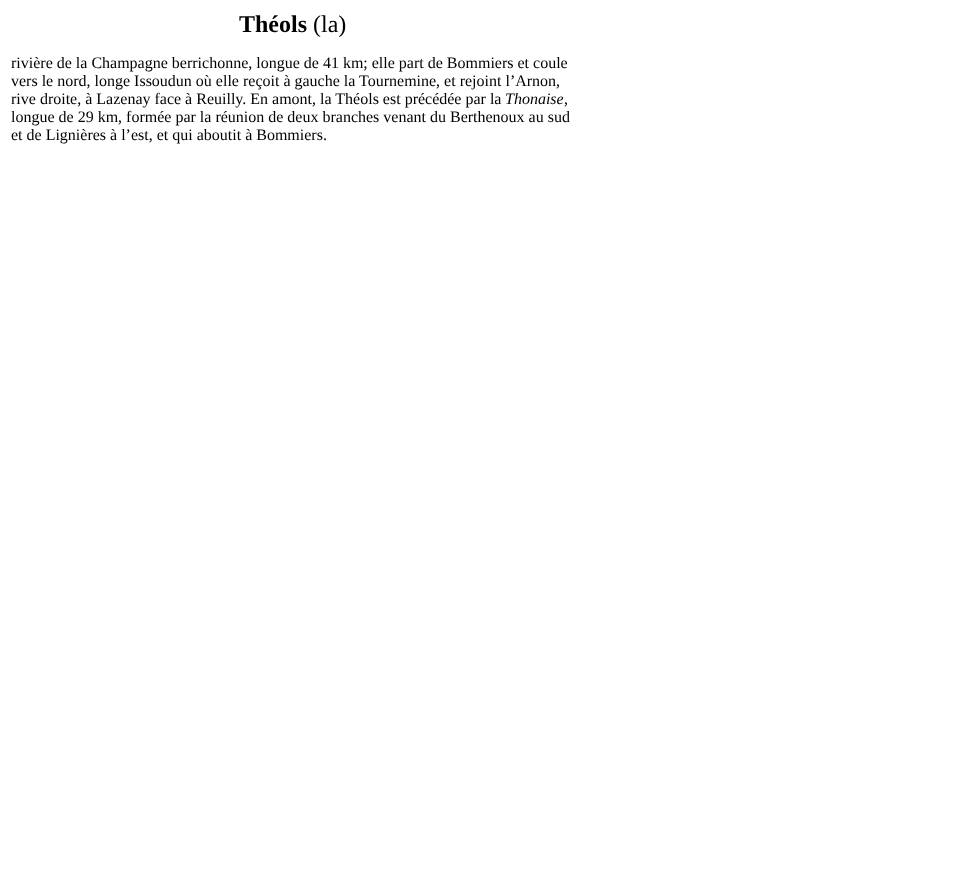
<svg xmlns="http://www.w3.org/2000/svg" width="980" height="871">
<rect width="100%" height="100%" fill="#fff"/>
<text x="239" y="32" style="font-family:Liberation Serif;font-size:24px;font-weight:bold;fill:#000">Théols</text>
<text x="313" y="32" style="font-family:Liberation Serif;font-size:24px;fill:#000">(la)</text>
<text x="11" y="68" style="font-family:Liberation Serif;font-size:16px;fill:#000">rivière de la Champagne berrichonne, longue de 41 km; elle part de Bommiers et coule</text>
<text x="11" y="86" style="font-family:Liberation Serif;font-size:16px;fill:#000">vers le nord, longe Issoudun où elle reçoit à gauche la Tournemine, et rejoint l’Arnon,</text>
<text x="11" y="104" style="font-family:Liberation Serif;font-size:16px;fill:#000">rive droite, à Lazenay face à Reuilly. En amont, la Théols est précédée par la</text>
<text x="505" y="104" style="font-family:Liberation Serif;font-size:16px;font-style:italic;fill:#000">Thonaise</text>
<text x="564" y="104" style="font-family:Liberation Serif;font-size:16px;fill:#000">,</text>
<text x="11" y="122" style="font-family:Liberation Serif;font-size:16px;fill:#000">longue de 29 km, formée par la réunion de deux branches venant du Berthenoux au sud</text>
<text x="11" y="140" style="font-family:Liberation Serif;font-size:16px;fill:#000">et de Lignières à l’est, et qui aboutit à Bommiers.</text>
</svg>
